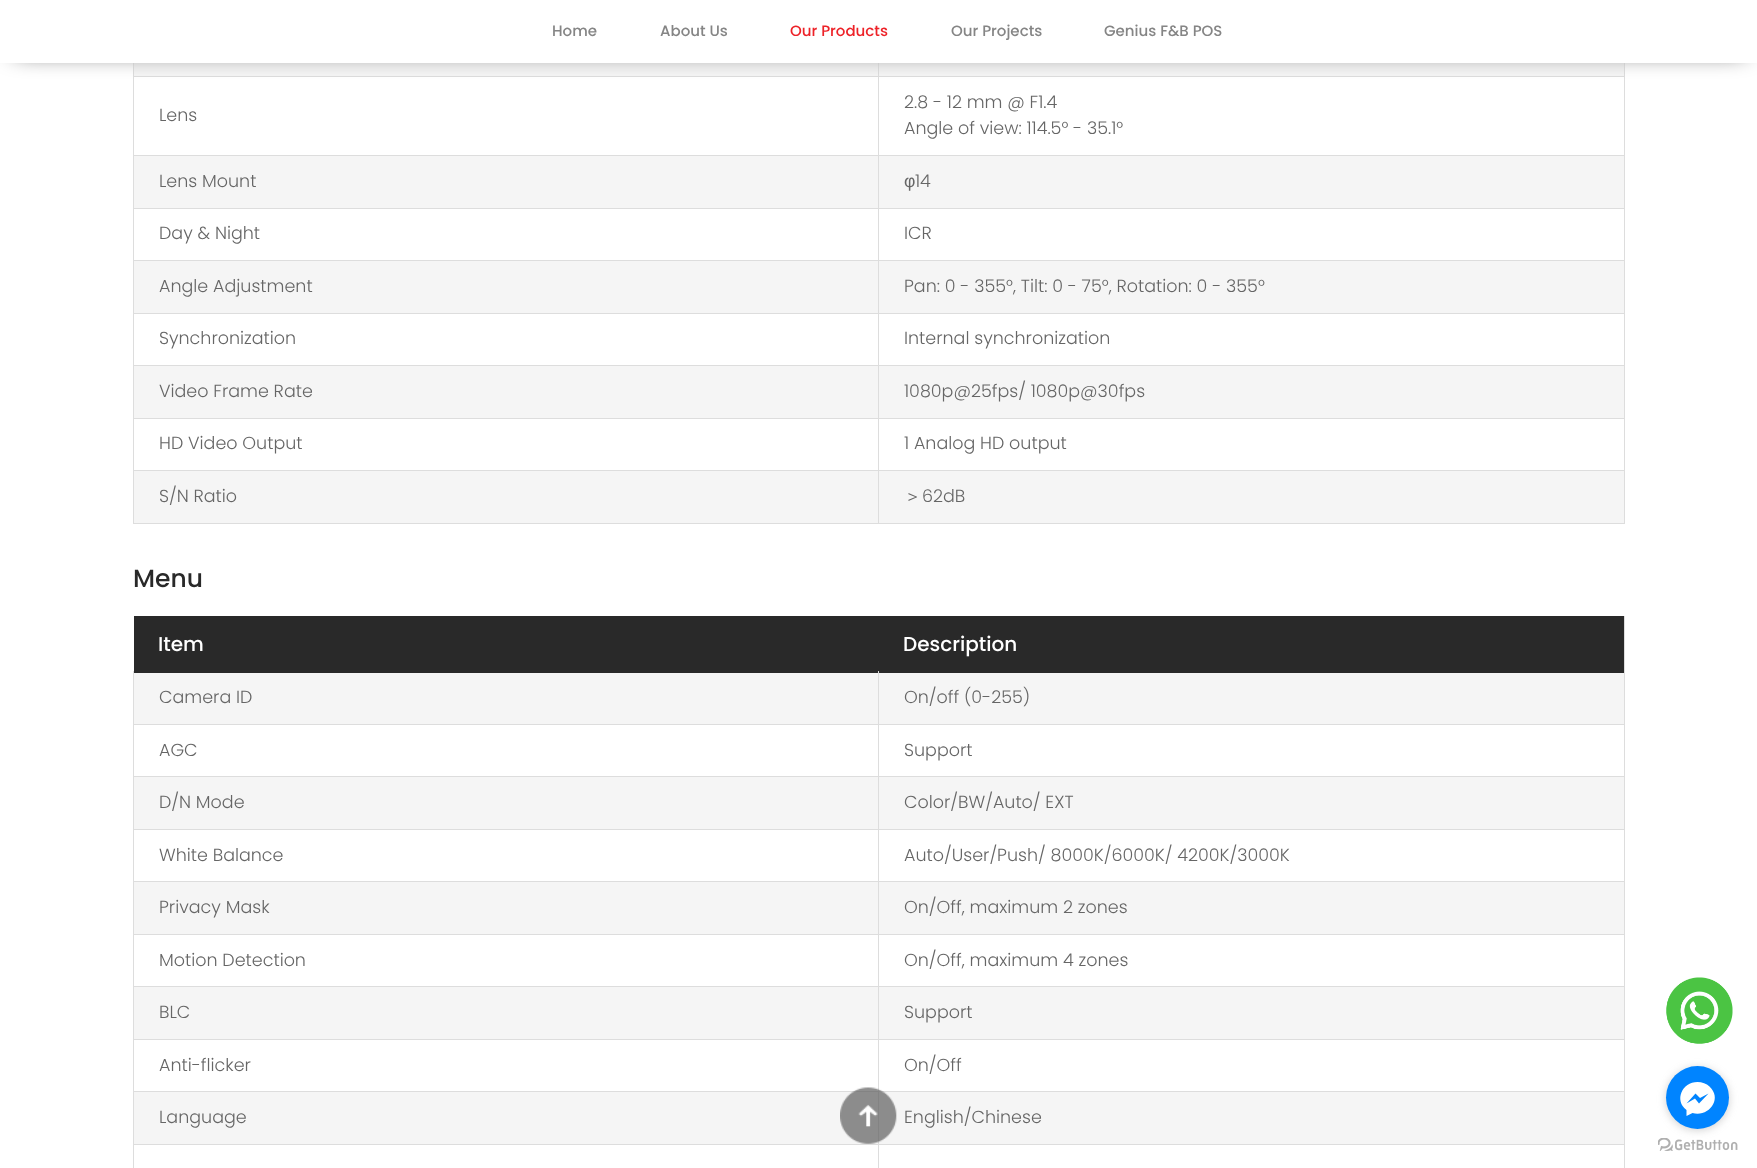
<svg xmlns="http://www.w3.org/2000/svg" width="1757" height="1168">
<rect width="100%" height="100%" fill="#fff"/>
<rect x="1624" y="63" width="1" height="461" fill="#ddd"/>
<rect x="134" y="63" width="1490" height="13" fill="#f5f5f5"/>
<rect x="134" y="156" width="1490" height="52" fill="#f5f5f5"/>
<rect x="134" y="261" width="1490" height="52" fill="#f5f5f5"/>
<rect x="134" y="366" width="1490" height="52" fill="#f5f5f5"/>
<rect x="133" y="523" width="1492" height="1" fill="#ddd"/>
<rect x="134" y="471" width="1490" height="52" fill="#f5f5f5"/>
<rect x="878" y="470" width="1" height="54" fill="#ddd"/>
<rect x="878" y="470" width="747" height="1" fill="#ddd"/>
<rect x="878" y="418" width="1" height="53" fill="#ddd"/>
<rect x="878" y="418" width="747" height="1" fill="#ddd"/>
<rect x="878" y="365" width="1" height="54" fill="#ddd"/>
<rect x="878" y="365" width="747" height="1" fill="#ddd"/>
<rect x="878" y="313" width="1" height="53" fill="#ddd"/>
<rect x="878" y="313" width="747" height="1" fill="#ddd"/>
<rect x="878" y="260" width="1" height="54" fill="#ddd"/>
<rect x="878" y="260" width="747" height="1" fill="#ddd"/>
<rect x="878" y="208" width="1" height="53" fill="#ddd"/>
<rect x="878" y="208" width="747" height="1" fill="#ddd"/>
<rect x="878" y="155" width="1" height="54" fill="#ddd"/>
<rect x="878" y="155" width="747" height="1" fill="#ddd"/>
<rect x="878" y="76" width="1" height="80" fill="#ddd"/>
<rect x="878" y="76" width="747" height="1" fill="#ddd"/>
<rect x="878" y="63" width="1" height="15" fill="#ddd"/>
<rect x="133" y="470" width="1" height="54" fill="#ddd"/>
<rect x="133" y="470" width="746" height="1" fill="#ddd"/>
<rect x="133" y="418" width="1" height="53" fill="#ddd"/>
<rect x="133" y="418" width="746" height="1" fill="#ddd"/>
<rect x="133" y="365" width="1" height="54" fill="#ddd"/>
<rect x="133" y="365" width="746" height="1" fill="#ddd"/>
<rect x="133" y="313" width="1" height="53" fill="#ddd"/>
<rect x="133" y="313" width="746" height="1" fill="#ddd"/>
<rect x="133" y="260" width="1" height="54" fill="#ddd"/>
<rect x="133" y="260" width="746" height="1" fill="#ddd"/>
<rect x="133" y="208" width="1" height="53" fill="#ddd"/>
<rect x="133" y="208" width="746" height="1" fill="#ddd"/>
<rect x="133" y="155" width="1" height="54" fill="#ddd"/>
<rect x="133" y="155" width="746" height="1" fill="#ddd"/>
<rect x="133" y="76" width="1" height="80" fill="#ddd"/>
<rect x="133" y="76" width="746" height="1" fill="#ddd"/>
<rect x="133" y="63" width="1" height="15" fill="#ddd"/>
<rect width="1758" height="63" fill="#fff" filter="blur(6px)"/>
<rect x="15" y="33" width="1730" height="17" fill="#000" filter="blur(12.5px)"/>
<rect y="4" width="1757" height="59" fill="#fff"/>
<text x="552" y="36" style="font-family:Poppins;font-size:15px;font-weight:500;fill:#858585">Home</text>
<text x="660" y="36" style="font-family:Poppins;font-size:15px;font-weight:500;fill:#858585">About Us</text>
<text x="790" y="36" style="font-family:Poppins;font-size:15px;font-weight:500;fill:#ed2228">Our Products</text>
<text x="951" y="36" style="font-family:Poppins;font-size:15px;font-weight:500;fill:#858585">Our Projects</text>
<text x="1104" y="36" style="font-family:Poppins;font-size:15px;font-weight:500;fill:#858585">Genius F&amp;B POS</text>
<rect x="1624" y="616" width="1" height="552" fill="#ddd"/>
<rect x="134" y="1092" width="1490" height="52" fill="#f5f5f5"/>
<rect x="878" y="1144" width="1" height="24" fill="#ddd"/>
<rect x="878" y="1144" width="747" height="1" fill="#ddd"/>
<rect x="878" y="1091" width="1" height="54" fill="#ddd"/>
<rect x="878" y="1091" width="747" height="1" fill="#ddd"/>
<rect x="878" y="1039" width="1" height="54" fill="#ddd"/>
<rect x="133" y="1144" width="1" height="24" fill="#ddd"/>
<rect x="133" y="1144" width="746" height="1" fill="#ddd"/>
<rect x="133" y="1091" width="1" height="54" fill="#ddd"/>
<rect x="133" y="1091" width="746" height="1" fill="#ddd"/>
<image x="840" y="1087" width="57" height="57" href="media/1.png"/>
<text x="159" y="121" style="font-family:Poppins;font-size:17.5px;font-weight:300;fill:#666">Lens</text>
<text x="904" y="108" style="font-family:Poppins;font-size:17.5px;font-weight:300;fill:#666">2.8 - 12 mm @ F1.4</text>
<text x="904" y="134" style="font-family:Poppins;font-size:17.5px;font-weight:300;fill:#666">Angle of view: 114.5° - 35.1°</text>
<text x="159" y="187" style="font-family:Poppins;font-size:17.5px;font-weight:300;fill:#666">Lens Mount</text>
<text x="904" y="187" style="font-family:Liberation Sans;font-size:17.5px;fill:#666">φ</text>
<text x="915" y="187" style="font-family:Poppins;font-size:17.5px;font-weight:300;fill:#666">14</text>
<text x="159" y="239" style="font-family:Poppins;font-size:17.5px;font-weight:300;fill:#666">Day &amp; Night</text>
<text x="904" y="239" style="font-family:Poppins;font-size:17.5px;font-weight:300;fill:#666">ICR</text>
<text x="159" y="292" style="font-family:Poppins;font-size:17.5px;font-weight:300;fill:#666">Angle Adjustment</text>
<text x="904" y="292" style="font-family:Poppins;font-size:17.5px;font-weight:300;fill:#666">Pan: 0 - 355°, Tilt: 0 - 75°, Rotation: 0 - 355°</text>
<text x="159" y="344" style="font-family:Poppins;font-size:17.5px;font-weight:300;fill:#666">Synchronization</text>
<text x="904" y="344" style="font-family:Poppins;font-size:17.5px;font-weight:300;fill:#666">Internal synchronization</text>
<text x="159" y="397" style="font-family:Poppins;font-size:17.5px;font-weight:300;fill:#666">Video Frame Rate</text>
<text x="904" y="397" style="font-family:Poppins;font-size:17.5px;font-weight:300;fill:#666">1080p@25fps/ 1080p@30fps</text>
<text x="159" y="449" style="font-family:Poppins;font-size:17.5px;font-weight:300;fill:#666">HD Video Output</text>
<text x="904" y="449" style="font-family:Poppins;font-size:17.5px;font-weight:300;fill:#666">1 Analog HD output</text>
<text x="159" y="502" style="font-family:Poppins;font-size:17.5px;font-weight:300;fill:#666">S/N Ratio</text>
<text x="904" y="502" style="font-family:WenQuanYi Zen Hei;font-size:17.5px;font-weight:500;fill:#666">＞</text>
<text x="922" y="502" style="font-family:Poppins;font-size:17.5px;font-weight:300;fill:#666">62dB</text>
<text x="133" y="587" style="font-family:Poppins;font-size:25px;font-weight:500;fill:#292929">Menu</text>
<rect x="134" y="616" width="1490" height="57" fill="#292929"/>
<text x="158" y="651" style="font-family:Poppins;font-size:20px;font-weight:500;fill:#fff">Item</text>
<text x="903" y="651" style="font-family:Poppins;font-size:20px;font-weight:500;fill:#fff">Description</text>
<rect x="134" y="673" width="1490" height="51" fill="#f5f5f5"/>
<rect x="134" y="777" width="1490" height="52" fill="#f5f5f5"/>
<rect x="134" y="882" width="1490" height="52" fill="#f5f5f5"/>
<rect x="134" y="987" width="1490" height="52" fill="#f5f5f5"/>
<rect x="878" y="1039" width="747" height="1" fill="#ddd"/>
<rect x="878" y="986" width="1" height="54" fill="#ddd"/>
<rect x="878" y="986" width="747" height="1" fill="#ddd"/>
<rect x="878" y="934" width="1" height="54" fill="#ddd"/>
<rect x="878" y="934" width="747" height="1" fill="#ddd"/>
<rect x="878" y="881" width="1" height="54" fill="#ddd"/>
<rect x="878" y="881" width="747" height="1" fill="#ddd"/>
<rect x="878" y="829" width="1" height="54" fill="#ddd"/>
<rect x="878" y="829" width="747" height="1" fill="#ddd"/>
<rect x="878" y="776" width="1" height="54" fill="#ddd"/>
<rect x="878" y="776" width="747" height="1" fill="#ddd"/>
<rect x="878" y="724" width="1" height="54" fill="#ddd"/>
<rect x="878" y="724" width="747" height="1" fill="#ddd"/>
<rect x="878" y="671" width="1" height="54" fill="#ddd"/>
<rect x="133" y="1039" width="1" height="54" fill="#ddd"/>
<rect x="133" y="1039" width="746" height="1" fill="#ddd"/>
<rect x="133" y="986" width="1" height="54" fill="#ddd"/>
<rect x="133" y="986" width="746" height="1" fill="#ddd"/>
<rect x="133" y="934" width="1" height="54" fill="#ddd"/>
<rect x="133" y="934" width="746" height="1" fill="#ddd"/>
<rect x="133" y="881" width="1" height="54" fill="#ddd"/>
<rect x="133" y="881" width="746" height="1" fill="#ddd"/>
<rect x="133" y="829" width="1" height="54" fill="#ddd"/>
<rect x="133" y="829" width="746" height="1" fill="#ddd"/>
<rect x="133" y="776" width="1" height="54" fill="#ddd"/>
<rect x="133" y="776" width="746" height="1" fill="#ddd"/>
<rect x="133" y="724" width="1" height="54" fill="#ddd"/>
<rect x="133" y="724" width="746" height="1" fill="#ddd"/>
<rect x="133" y="671" width="1" height="54" fill="#ddd"/>
<text x="159" y="703" style="font-family:Poppins;font-size:17.5px;font-weight:300;fill:#666">Camera ID</text>
<text x="904" y="703" style="font-family:Poppins;font-size:17.5px;font-weight:300;fill:#666">On/off (0-255)</text>
<text x="159" y="756" style="font-family:Poppins;font-size:17.5px;font-weight:300;fill:#666">AGC</text>
<text x="904" y="756" style="font-family:Poppins;font-size:17.5px;font-weight:300;fill:#666">Support</text>
<text x="159" y="808" style="font-family:Poppins;font-size:17.5px;font-weight:300;fill:#666">D/N Mode</text>
<text x="904" y="808" style="font-family:Poppins;font-size:17.5px;font-weight:300;fill:#666">Color/BW/Auto/ EXT</text>
<text x="159" y="861" style="font-family:Poppins;font-size:17.5px;font-weight:300;fill:#666">White Balance</text>
<text x="904" y="861" style="font-family:Poppins;font-size:17.5px;font-weight:300;fill:#666">Auto/User/Push/ 8000K/6000K/ 4200K/3000K</text>
<text x="159" y="913" style="font-family:Poppins;font-size:17.5px;font-weight:300;fill:#666">Privacy Mask</text>
<text x="904" y="913" style="font-family:Poppins;font-size:17.5px;font-weight:300;fill:#666">On/Off, maximum 2 zones</text>
<text x="159" y="966" style="font-family:Poppins;font-size:17.5px;font-weight:300;fill:#666">Motion Detection</text>
<text x="904" y="966" style="font-family:Poppins;font-size:17.5px;font-weight:300;fill:#666">On/Off, maximum 4 zones</text>
<text x="159" y="1018" style="font-family:Poppins;font-size:17.5px;font-weight:300;fill:#666">BLC</text>
<text x="904" y="1018" style="font-family:Poppins;font-size:17.5px;font-weight:300;fill:#666">Support</text>
<text x="159" y="1071" style="font-family:Poppins;font-size:17.5px;font-weight:300;fill:#666">Anti-flicker</text>
<text x="904" y="1071" style="font-family:Poppins;font-size:17.5px;font-weight:300;fill:#666">On/Off</text>
<text x="159" y="1123" style="font-family:Poppins;font-size:17.5px;font-weight:300;fill:#666">Language</text>
<text x="904" y="1123" style="font-family:Poppins;font-size:17.5px;font-weight:300;fill:#666">English/Chinese</text>
<image x="1666" y="977" width="67" height="67" href="media/2.png"/>
<image x="1658" y="1138" width="80" height="13" href="media/3.png"/>
<rect x="1666" y="1068" width="63" height="62" rx="31" fill="#88888866" filter="blur(4.5px)"/>
<circle cx="1697.5" cy="1097.5" r="31.5" fill="#0084ff"/>
<path d="M1697.5 1082c-15.5 0-23.5 18.5-11 28v6l6-3c16 4.5 30.5-14 17-26.5c-3-3-7.5-4.5-12-4.5zm1.5 21.5l-4-5l-8.5 5l9-10l4.5 4.5l8.5-4.5z" fill="#fff"/>
</svg>
